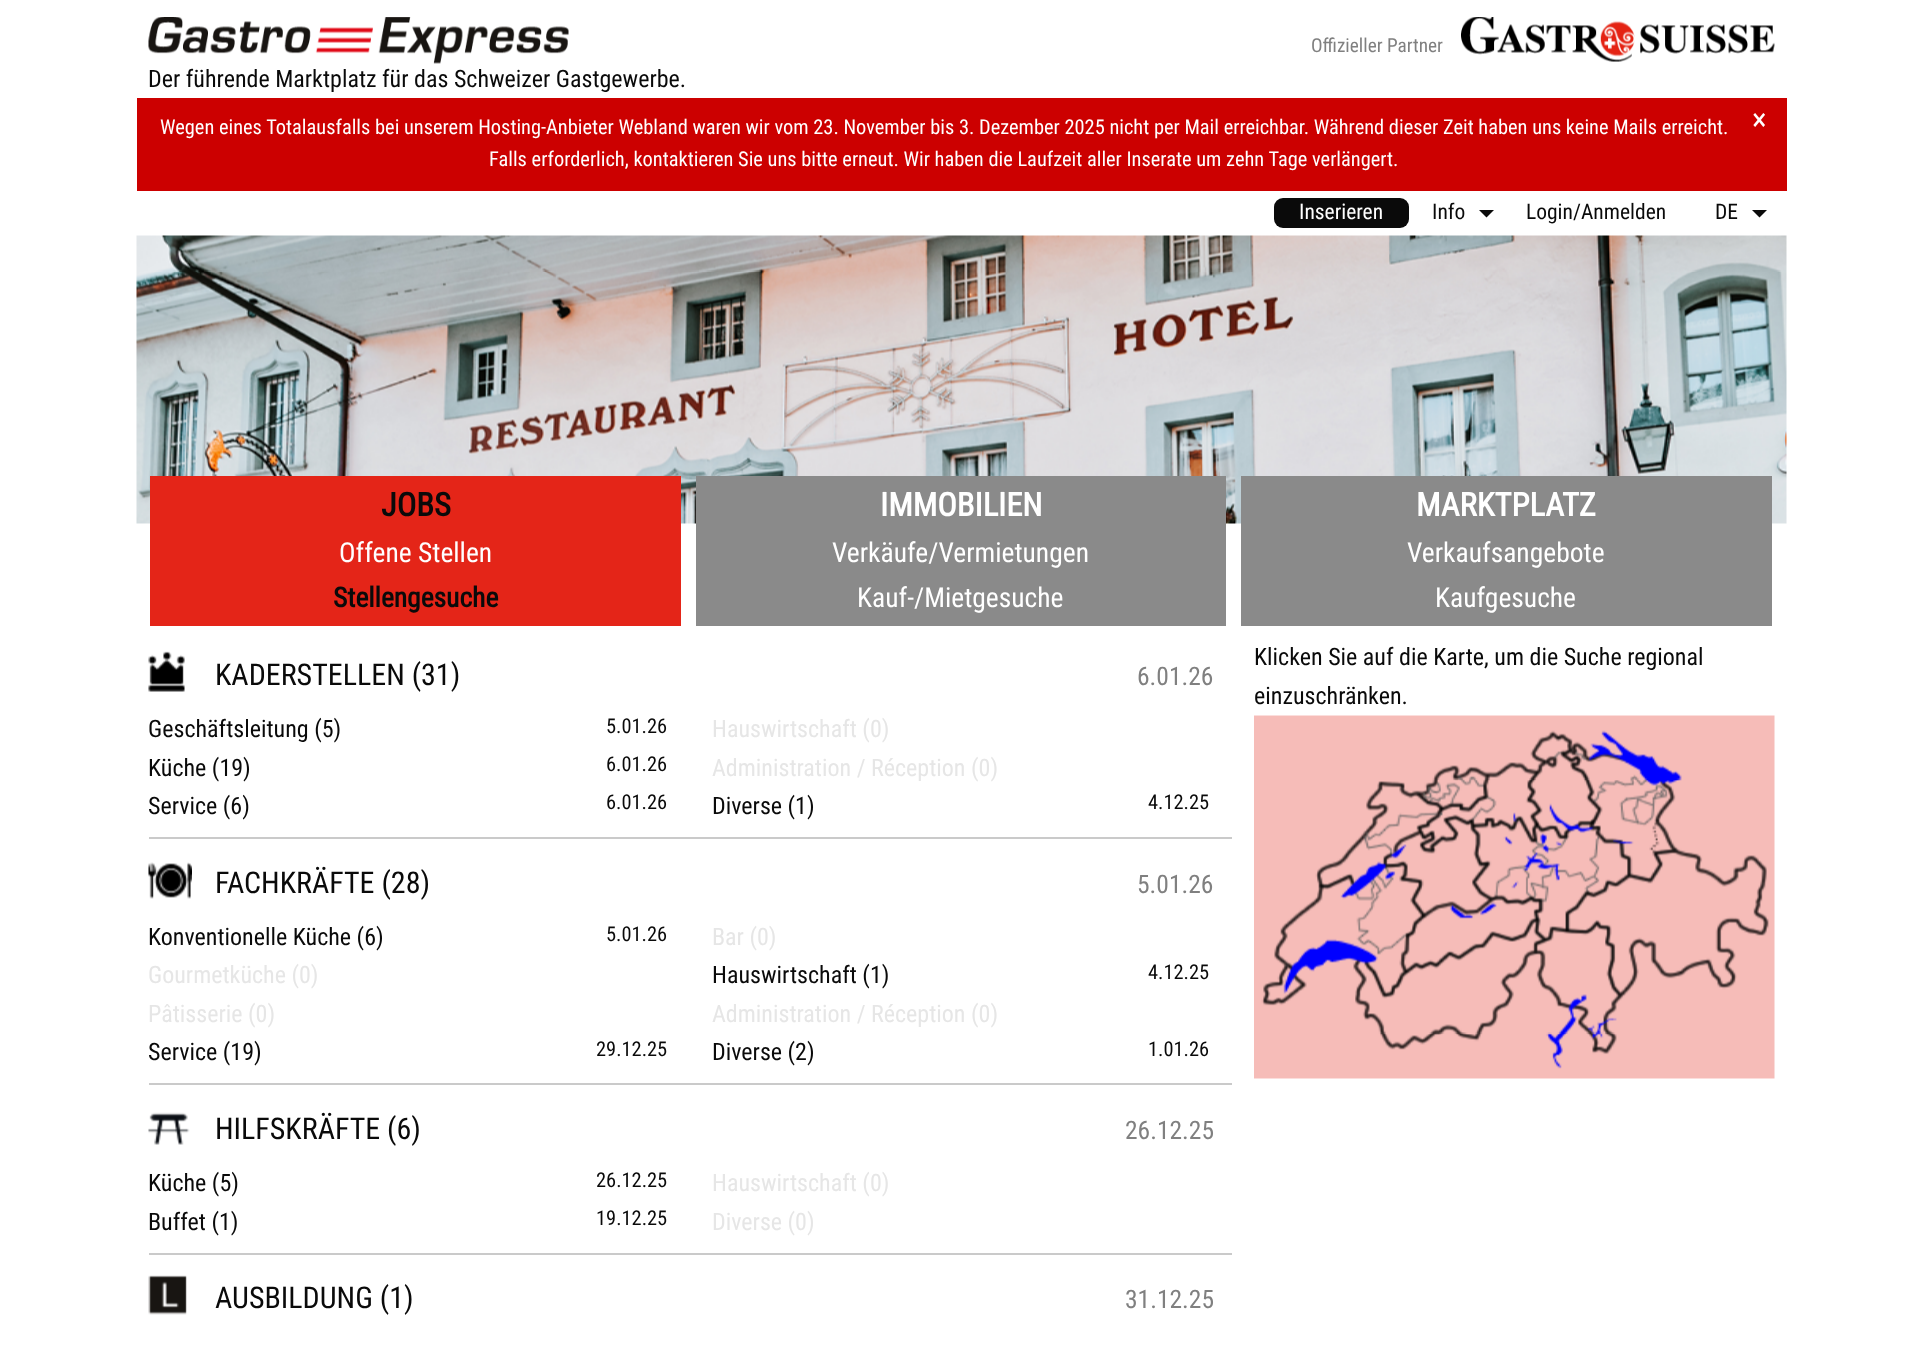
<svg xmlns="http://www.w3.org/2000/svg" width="1921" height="1348">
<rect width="100%" height="100%" fill="#fff"/>
<text x="1311" y="52" style="font-family:Roboto Condensed;font-size:19.25px;fill:#808080">Offizieller Partner</text>
<image x="1461" y="17" width="314" height="45" href="media/1.png"/>
<image x="148" y="17" width="421" height="47" href="media/2.png"/>
<text x="148" y="87" style="font-family:Roboto Condensed;font-size:24px;fill:#0a0a0a">Der führende Marktplatz für das Schweizer Gastgewerbe.</text>
<rect x="137" y="98" width="1650" height="93" fill="#c00"/>
<text x="160" y="134" style="font-family:Roboto Condensed;font-size:20.4px;fill:#fff">Wegen eines Totalausfalls bei unserem Hosting-Anbieter Webland waren wir vom 23. November bis 3. Dezember 2025 nicht per Mail erreichbar. Während dieser Zeit haben uns keine Mails erreicht.</text>
<text x="489" y="166" style="font-family:Roboto Condensed;font-size:20.4px;fill:#fff">Falls erforderlich, kontaktieren Sie uns bitte erneut. Wir haben die Laufzeit aller Inserate um zehn Tage verlängert.</text>
<text x="1752" y="130" style="font-family:Roboto Condensed;font-size:31px;fill:#fff">×</text>
<rect x="1274" y="198" width="135" height="30" rx="9" fill="#0a0a0a"/>
<text x="1299" y="219" style="font-family:Roboto Condensed;font-size:21.5px;fill:#fff">Inserieren</text>
<text x="1432" y="219" style="font-family:Roboto Condensed;font-size:21.5px;fill:#0a0a0a">Info</text>
<path d="M1479 210h15l-7.5 7.5z" fill="#0a0a0a"/>
<text x="1526" y="219" style="font-family:Roboto Condensed;font-size:21.5px;fill:#0a0a0a">Login/Anmelden</text>
<text x="1715" y="219" style="font-family:Roboto Condensed;font-size:21.5px;fill:#0a0a0a">DE</text>
<path d="M1752 210h15l-7.5 7.5z" fill="#0a0a0a"/>
<image x="136" y="235" width="1651" height="289" href="media/3.png"/>
<rect x="150" y="476" width="531" height="150" fill="#e42518"/>
<text x="381" y="516" style="font-family:Roboto Condensed;font-size:32.5px;font-weight:bold;fill:#0a0a0a">JOBS</text>
<text x="339" y="562" style="font-family:Roboto Condensed;font-size:27.5px;fill:#fff">Offene Stellen</text>
<text x="333" y="607" style="font-family:Roboto Condensed;font-size:27.5px;font-weight:bold;fill:#0a0a0a">Stellengesuche</text>
<rect x="696" y="476" width="530" height="150" fill="#8a8a8a"/>
<text x="880" y="516" style="font-family:Roboto Condensed;font-size:32.5px;font-weight:bold;fill:#fff">IMMOBILIEN</text>
<text x="832" y="562" style="font-family:Roboto Condensed;font-size:27.5px;fill:#fff">Verkäufe/Vermietungen</text>
<text x="857" y="607" style="font-family:Roboto Condensed;font-size:27.5px;fill:#fff">Kauf-/Mietgesuche</text>
<rect x="1241" y="476" width="531" height="150" fill="#8a8a8a"/>
<text x="1416" y="516" style="font-family:Roboto Condensed;font-size:32.5px;font-weight:bold;fill:#fff">MARKTPLATZ</text>
<text x="1407" y="562" style="font-family:Roboto Condensed;font-size:27.5px;fill:#fff">Verkaufsangebote</text>
<text x="1435" y="607" style="font-family:Roboto Condensed;font-size:27.5px;fill:#fff">Kaufgesuche</text>
<image x="148" y="651" width="37" height="41" href="media/4.png"/>
<text x="215" y="685" style="font-family:Roboto Condensed;font-size:30px;fill:#0a0a0a">KADERSTELLEN (31)</text>
<text x="1137" y="685" style="font-family:Roboto Condensed;font-size:25.5px;fill:#808080">6.01.26</text>
<text x="148" y="737" style="font-family:Roboto Condensed;font-size:24px;fill:#0a0a0a">Geschäftsleitung (5)</text>
<text x="606" y="733" style="font-family:Roboto Condensed;font-size:20.4px;fill:#0a0a0a">5.01.26</text>
<text x="148" y="776" style="font-family:Roboto Condensed;font-size:24px;fill:#0a0a0a">Küche (19)</text>
<text x="606" y="771" style="font-family:Roboto Condensed;font-size:20.4px;fill:#0a0a0a">6.01.26</text>
<text x="148" y="814" style="font-family:Roboto Condensed;font-size:24px;fill:#0a0a0a">Service (6)</text>
<text x="606" y="809" style="font-family:Roboto Condensed;font-size:20.4px;fill:#0a0a0a">6.01.26</text>
<text x="712" y="737" style="font-family:Roboto Condensed;font-size:24px;fill:#e6e6e6">Hauswirtschaft (0)</text>
<text x="712" y="776" style="font-family:Roboto Condensed;font-size:24px;fill:#e6e6e6">Administration / Réception (0)</text>
<text x="712" y="814" style="font-family:Roboto Condensed;font-size:24px;fill:#0a0a0a">Diverse (1)</text>
<text x="1148" y="809" style="font-family:Roboto Condensed;font-size:20.4px;fill:#0a0a0a">4.12.25</text>
<rect x="149" y="837" width="1083" height="2" fill="#cacaca"/>
<image x="148" y="862" width="44" height="37" href="media/5.png"/>
<text x="215" y="893" style="font-family:Roboto Condensed;font-size:30px;fill:#0a0a0a">FACHKRÄFTE (28)</text>
<text x="1137" y="893" style="font-family:Roboto Condensed;font-size:25.5px;fill:#808080">5.01.26</text>
<text x="148" y="945" style="font-family:Roboto Condensed;font-size:24px;fill:#0a0a0a">Konventionelle Küche (6)</text>
<text x="606" y="941" style="font-family:Roboto Condensed;font-size:20.4px;fill:#0a0a0a">5.01.26</text>
<text x="148" y="983" style="font-family:Roboto Condensed;font-size:24px;fill:#e6e6e6">Gourmetküche (0)</text>
<text x="148" y="1022" style="font-family:Roboto Condensed;font-size:24px;fill:#e6e6e6">Pâtisserie (0)</text>
<text x="148" y="1060" style="font-family:Roboto Condensed;font-size:24px;fill:#0a0a0a">Service (19)</text>
<text x="596" y="1056" style="font-family:Roboto Condensed;font-size:20.4px;fill:#0a0a0a">29.12.25</text>
<text x="712" y="945" style="font-family:Roboto Condensed;font-size:24px;fill:#e6e6e6">Bar (0)</text>
<text x="712" y="983" style="font-family:Roboto Condensed;font-size:24px;fill:#0a0a0a">Hauswirtschaft (1)</text>
<text x="1148" y="979" style="font-family:Roboto Condensed;font-size:20.4px;fill:#0a0a0a">4.12.25</text>
<text x="712" y="1022" style="font-family:Roboto Condensed;font-size:24px;fill:#e6e6e6">Administration / Réception (0)</text>
<text x="712" y="1060" style="font-family:Roboto Condensed;font-size:24px;fill:#0a0a0a">Diverse (2)</text>
<text x="1148" y="1056" style="font-family:Roboto Condensed;font-size:20.4px;fill:#0a0a0a">1.01.26</text>
<rect x="149" y="1083" width="1083" height="2" fill="#cacaca"/>
<image x="148" y="1112" width="42" height="33" href="media/6.png"/>
<text x="215" y="1139" style="font-family:Roboto Condensed;font-size:30px;fill:#0a0a0a">HILFSKRÄFTE (6)</text>
<text x="1125" y="1139" style="font-family:Roboto Condensed;font-size:25.5px;fill:#808080">26.12.25</text>
<text x="148" y="1191" style="font-family:Roboto Condensed;font-size:24px;fill:#0a0a0a">Küche (5)</text>
<text x="596" y="1187" style="font-family:Roboto Condensed;font-size:20.4px;fill:#0a0a0a">26.12.25</text>
<text x="148" y="1230" style="font-family:Roboto Condensed;font-size:24px;fill:#0a0a0a">Buffet (1)</text>
<text x="596" y="1225" style="font-family:Roboto Condensed;font-size:20.4px;fill:#0a0a0a">19.12.25</text>
<text x="712" y="1191" style="font-family:Roboto Condensed;font-size:24px;fill:#e6e6e6">Hauswirtschaft (0)</text>
<text x="712" y="1230" style="font-family:Roboto Condensed;font-size:24px;fill:#e6e6e6">Diverse (0)</text>
<rect x="149" y="1253" width="1083" height="2" fill="#cacaca"/>
<image x="148" y="1275" width="39" height="40" href="media/7.png"/>
<text x="215" y="1308" style="font-family:Roboto Condensed;font-size:30px;fill:#0a0a0a">AUSBILDUNG (1)</text>
<text x="1125" y="1308" style="font-family:Roboto Condensed;font-size:25.5px;fill:#808080">31.12.25</text>
<text x="1254" y="665" style="font-family:Roboto Condensed;font-size:24px;fill:#0a0a0a">Klicken Sie auf die Karte, um die Suche regional</text>
<text x="1254" y="704" style="font-family:Roboto Condensed;font-size:24px;fill:#0a0a0a">einzuschränken.</text>
<image x="1254" y="715" width="521" height="364" href="media/8.png"/>
</svg>
